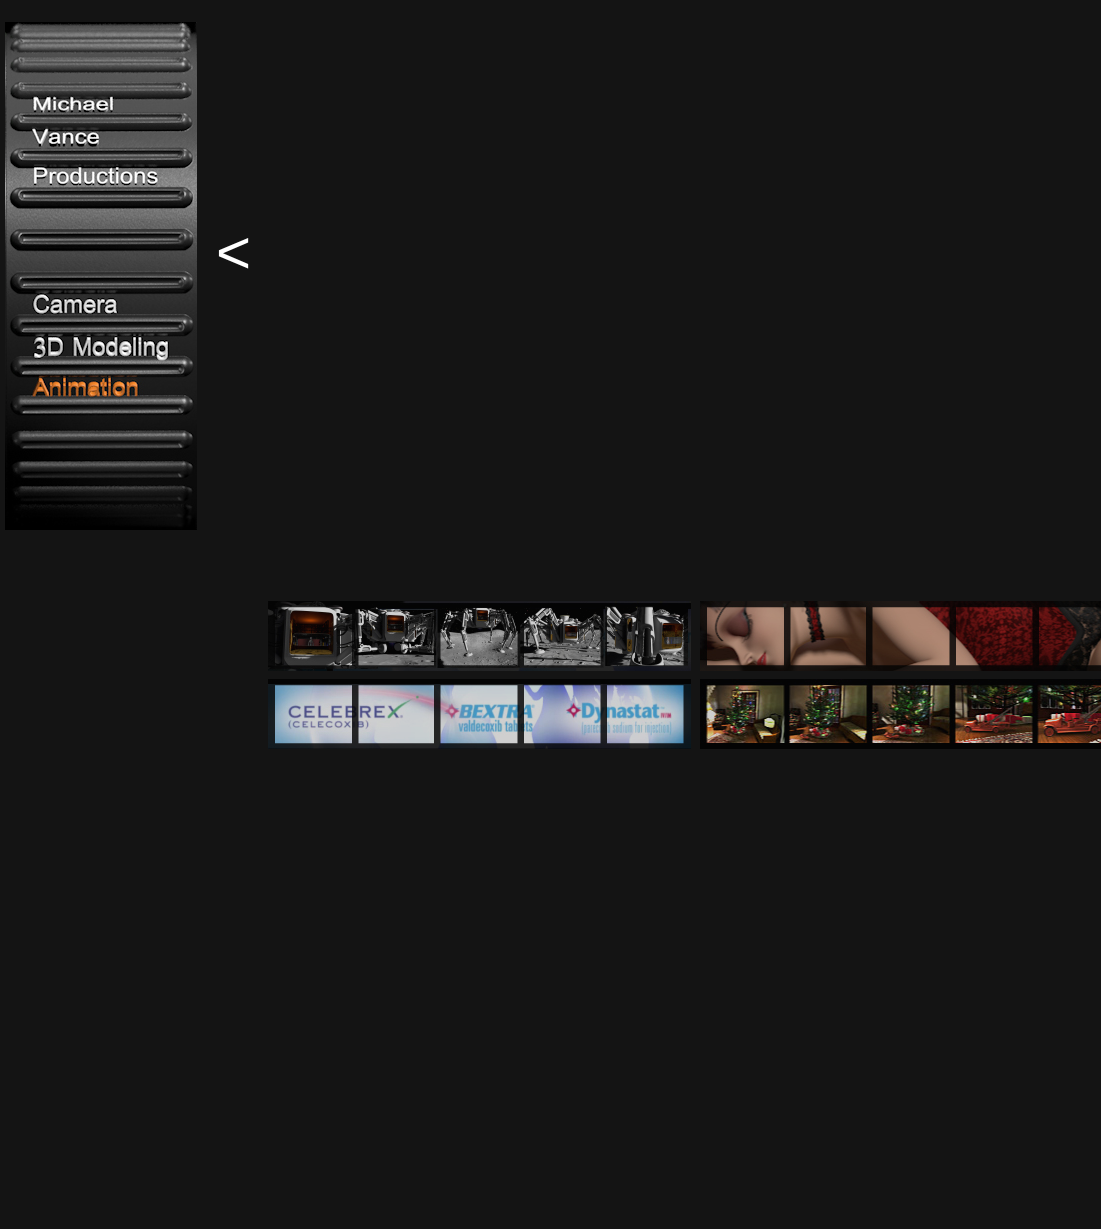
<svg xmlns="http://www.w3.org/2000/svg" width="1101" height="1229">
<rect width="100%" height="100%" fill="#141414"/>
<image x="5" y="22" width="192" height="508" href="media/1.png"/>
<image x="24" y="374" width="154" height="29" href="media/2.png"/>
<text x="216" y="273" style="font-family:Liberation Sans;font-size:60px;fill:#fff">&lt;</text>
<image x="268" y="601" width="423" height="70" href="media/3.png"/>
<image x="700" y="601" width="401" height="70" href="media/4.png"/>
<image x="268" y="679" width="423" height="70" href="media/5.png"/>
<image x="700" y="679" width="401" height="70" href="media/6.png"/>
</svg>
